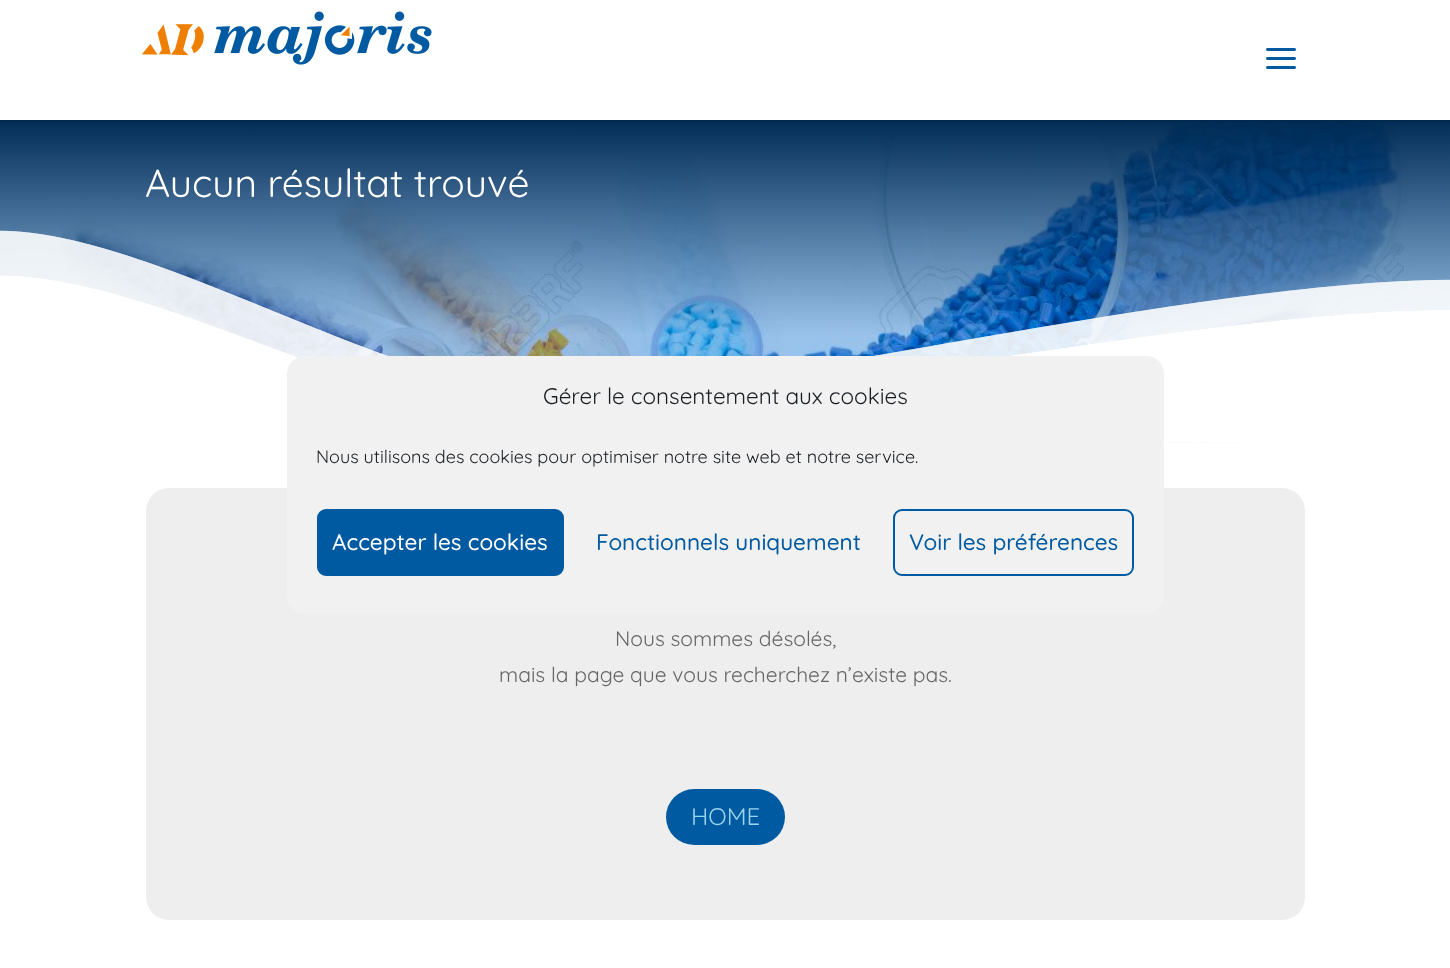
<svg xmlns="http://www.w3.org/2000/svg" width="1450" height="968">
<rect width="100%" height="100%" fill="#fff"/>
<path d="M0 120v2h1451v-120h-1v118z" fill="#01284d"/>
<image x="141" y="11" width="291" height="54" href="media/1.png"/>
<image x="1266" y="48" width="30" height="21" href="media/2.png"/>
<image x="0" y="122" width="1450" height="321" href="media/3.png"/>
<text x="145" y="197" style="font-family:Quicksand;font-size:39px;fill:#fff">Aucun résultat trouvé</text>
<image x="0" y="230" width="1450" height="213" href="media/4.png"/>
<rect x="146" y="488" width="1159" height="432" rx="23" fill="#eee"/>
<text x="615" y="646" style="font-family:Quicksand;font-size:21px;fill:#666">Nous sommes désolés,</text>
<text x="499" y="682" style="font-family:Quicksand;font-size:21px;fill:#666">mais la page que vous recherchez n’existe pas.</text>
<rect x="666" y="789" width="119" height="56" rx="28" fill="#005aa1"/>
<text x="691" y="825" style="font-family:Quicksand;font-size:24px;fill:#9ad5ed">HOME</text>
<rect x="287" y="356" width="877" height="258" rx="18" fill="#f1f1f1"/>
<text x="543" y="404" style="font-family:Quicksand;font-size:22.5px;fill:#191e23">Gérer le consentement aux cookies</text>
<text x="316" y="463" style="font-family:Quicksand;font-size:18px;fill:#191e23">Nous utilisons des cookies pour optimiser notre site web et notre service.</text>
<rect x="318" y="510" width="245" height="65" rx="8" fill="#005aa1" stroke="#005aa1" stroke-width="2"/>
<text x="332" y="550" style="font-family:Quicksand;font-size:22.5px;font-weight:500;fill:#fff">Accepter les cookies</text>
<text x="596" y="550" style="font-family:Quicksand;font-size:22.5px;font-weight:500;fill:#005aa1">Fonctionnels uniquement</text>
<rect x="894" y="510" width="239" height="65" rx="8" fill="none" stroke="#005aa1" stroke-width="2"/>
<text x="909" y="550" style="font-family:Quicksand;font-size:22.5px;font-weight:500;fill:#005aa1">Voir les préférences</text>
</svg>
